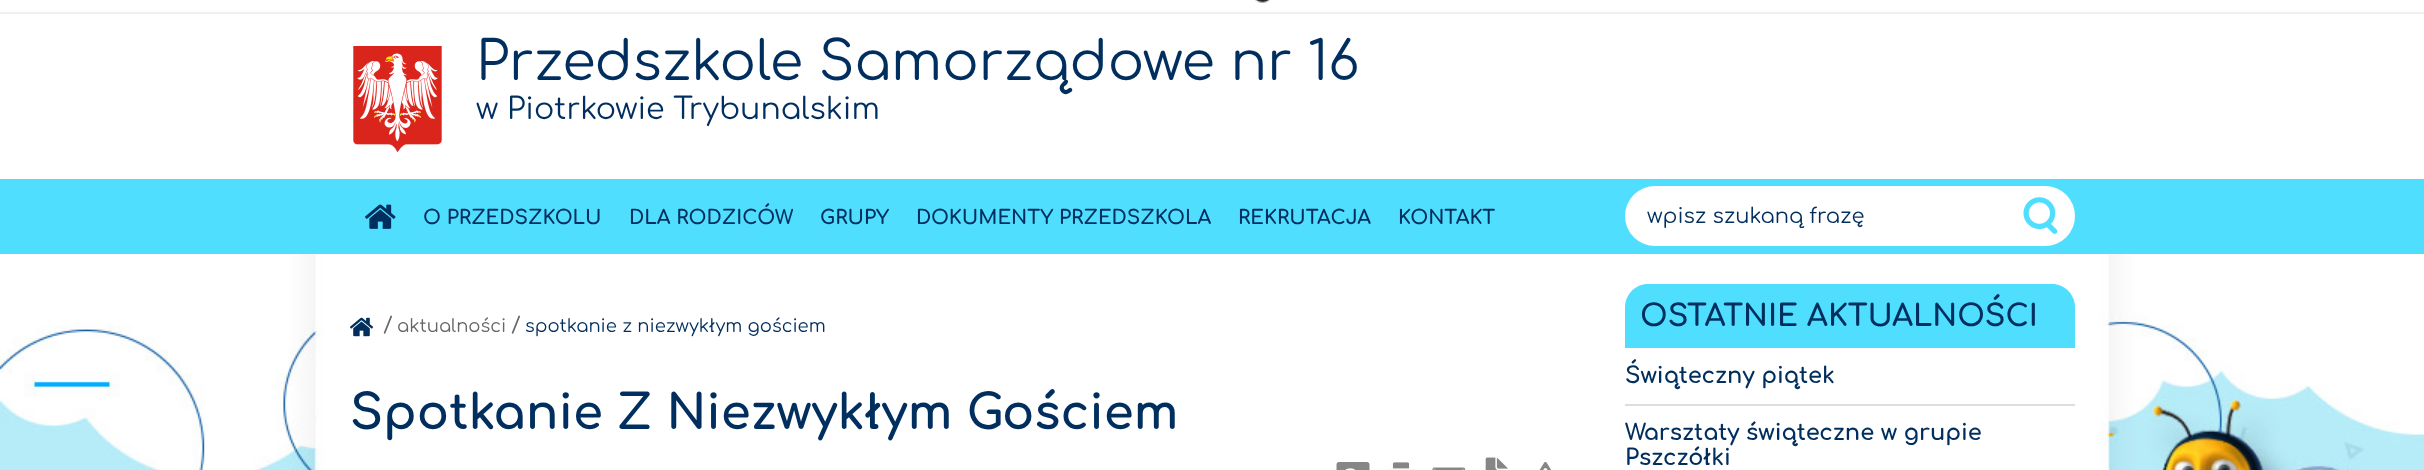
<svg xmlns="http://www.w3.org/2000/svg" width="2424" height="470">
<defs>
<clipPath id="clip1"><rect x="1647" y="206" width="338" height="22"/></clipPath>
</defs>
<rect width="100%" height="100%" fill="#fff"/>
<image x="0" y="254" width="2424" height="216" href="media/1.png"/>
<rect y="12" width="2424" height="2" fill="#f0f0f0"/>
<image x="1255" y="0" width="15" height="3" href="media/2.png"/>
<image x="353" y="46" width="89" height="107" href="media/3.png"/>
<text x="476" y="80" style="font-family:Comfortaa;font-size:54px;fill:#002f5f">Przedszkole Samorządowe nr 16</text>
<text x="476" y="119" style="font-family:Comfortaa;font-size:30px;fill:#002f5f">w Piotrkowie Trybunalskim</text>
<rect y="179" width="2424" height="75" fill="#50deff"/>
<image x="365" y="204" width="31" height="25" href="media/4.png"/>
<text x="423" y="224" style="font-family:Comfortaa;font-size:19.5px;font-weight:bold;fill:#002f5f">O PRZEDSZKOLU</text>
<text x="629" y="224" style="font-family:Comfortaa;font-size:19.5px;font-weight:bold;fill:#002f5f">DLA RODZICÓW</text>
<text x="820" y="224" style="font-family:Comfortaa;font-size:19.5px;font-weight:bold;fill:#002f5f">GRUPY</text>
<text x="916" y="224" style="font-family:Comfortaa;font-size:19.5px;font-weight:bold;fill:#002f5f">DOKUMENTY PRZEDSZKOLA</text>
<text x="1238" y="224" style="font-family:Comfortaa;font-size:19.5px;font-weight:bold;fill:#002f5f">REKRUTACJA</text>
<text x="1398" y="224" style="font-family:Comfortaa;font-size:19.5px;font-weight:bold;fill:#002f5f">KONTAKT</text>
<rect x="1625" y="186" width="450" height="60" rx="30" fill="#fff"/>
<g clip-path="url(#clip1)">
<text x="1647" y="223" style="font-family:Comfortaa;font-size:21px;fill:#002f5f">wpisz szukaną frazę</text>
</g>
<image x="2023" y="197" width="35" height="37" href="media/5.png"/>
<image x="350" y="317" width="24" height="20" href="media/6.png"/>
<text x="383" y="332" style="font-family:Comfortaa;font-size:21px;fill:#666">/</text>
<text x="397" y="332" style="font-family:Comfortaa;font-size:18px;fill:#666">aktualności</text>
<text x="511" y="332" style="font-family:Comfortaa;font-size:21px;fill:#666">/</text>
<text x="525" y="332" style="font-family:Comfortaa;font-size:18px;fill:#002f5f">spotkanie z niezwykłym gościem</text>
<text x="350" y="429" style="font-family:Comfortaa;font-size:48px;font-weight:bold;fill:#002f5f">Spotkanie Z Niezwykłym Gościem</text>
<image x="1336" y="462" width="34" height="8" href="media/7.png"/>
<image x="1386" y="462" width="30" height="8" href="media/8.png"/>
<image x="1432" y="467" width="34" height="3" href="media/9.png"/>
<image x="1485" y="457" width="23" height="13" href="media/10.png"/>
<image x="1539" y="462" width="13" height="8" href="media/11.png"/>
<path d="M1648 284h404c12.5 0 23 10.5 23 23v41h-450v-41c0-12.5 10.5-23 23-23z" fill="#50deff"/>
<text x="1640" y="326" style="font-family:Comfortaa;font-size:30px;font-weight:bold;fill:#002f5f">OSTATNIE AKTUALNOŚCI</text>
<rect x="1625" y="404" width="450" height="2" fill="#ddd"/>
<text x="1625" y="383" style="font-family:Comfortaa;font-size:22.5px;font-weight:bold;fill:#002f5f">Świąteczny piątek</text>
<text x="1625" y="440" style="font-family:Comfortaa;font-size:22.5px;font-weight:bold;fill:#002f5f">Warsztaty świąteczne w grupie</text>
<text x="1625" y="465" style="font-family:Comfortaa;font-size:22.5px;font-weight:bold;fill:#002f5f">Pszczółki</text>
</svg>
